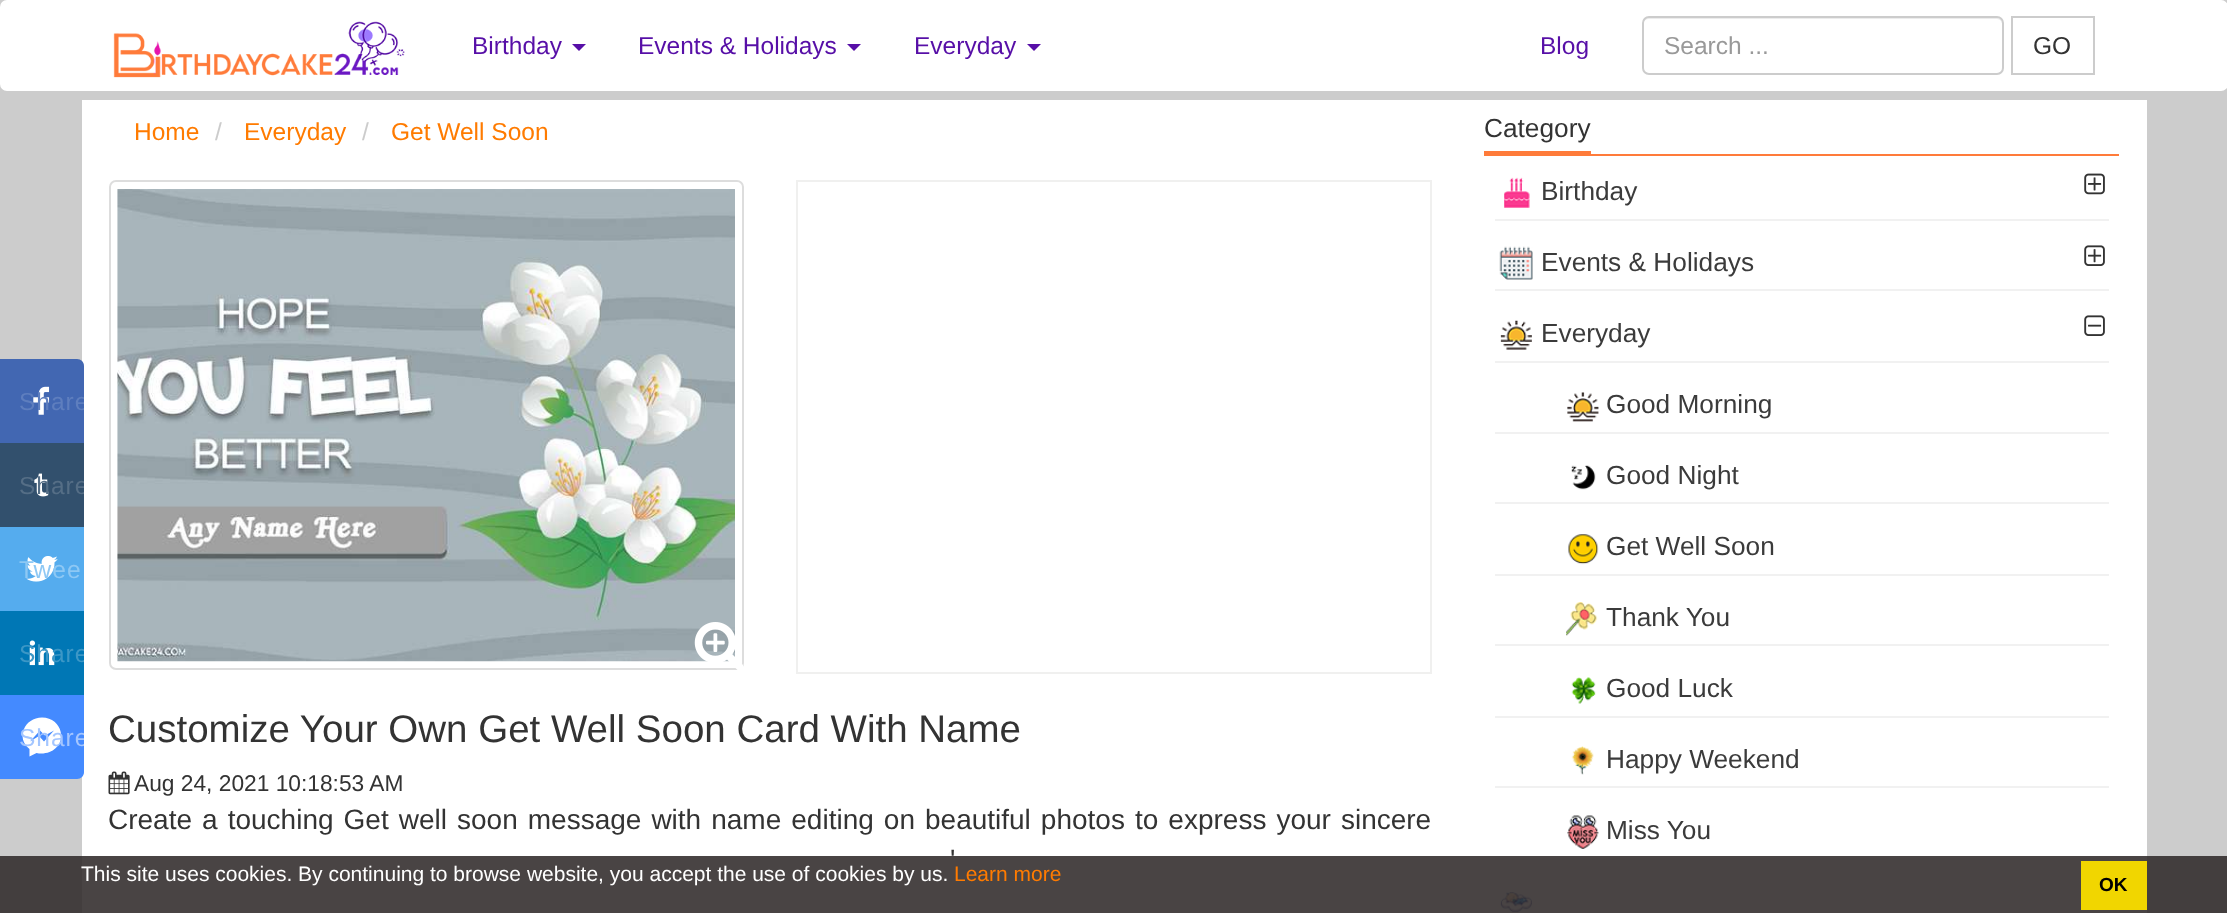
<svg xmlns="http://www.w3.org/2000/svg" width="2227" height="913">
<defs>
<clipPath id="clip1"><path d="M0 359h77c4 0 7 3 7 7v77h-84z"/></clipPath>
<clipPath id="clip2"><rect y="443" width="84" height="84"/></clipPath>
<clipPath id="clip3"><rect y="611" width="84" height="84"/></clipPath>
<clipPath id="clip4"><path d="M0 695h84v77c0 4-3 7-7 7h-77z"/></clipPath>
</defs>
<rect width="100%" height="100%" fill="#ccc"/>
<rect x="82" y="100" width="2065" height="813" fill="#fff"/>
<path d="M0 359h77c4 0 7 3 7 7v77h-84z" fill="#4267b2"/>
<image x="33" y="386" width="17" height="29" href="media/1.png"/>
<g clip-path="url(#clip1)">
<text x="19" y="410" style="font-family:Liberation Sans;font-size:24.5px;letter-spacing:1px;fill:#5e7ebe">Share</text>
</g>
<rect y="443" width="84" height="84" fill="#32506d"/>
<image x="34" y="473" width="15" height="24" href="media/2.png"/>
<g clip-path="url(#clip2)">
<text x="19" y="494" style="font-family:Liberation Sans;font-size:24.5px;letter-spacing:1px;fill:#556e86">Share</text>
</g>
<rect y="527" width="84" height="84" fill="#55acee"/>
<image x="26" y="556" width="32" height="26" href="media/3.png"/>
<text x="19" y="578" style="font-family:Liberation Sans;font-size:24.5px;letter-spacing:1px;fill:#8ec8f4">Twee</text>
<rect y="611" width="84" height="84" fill="#0077b5"/>
<image x="29" y="640" width="26" height="26" href="media/4.png"/>
<g clip-path="url(#clip3)">
<text x="19" y="662" style="font-family:Liberation Sans;font-size:24.5px;letter-spacing:1px;fill:#3c97c6">Share</text>
</g>
<path d="M0 695h84v77c0 4-3 7-7 7h-77z" fill="#448aff"/>
<path d="M42 717.5c-17.5 0-26.5 20.5-12.5 31.5v7.5l7-3.5c4.5 1 9 .5 13-1c19.5-7.5 13-34.5-7.5-34.5zm2 24l-5-5.5l-9 5.5l10-11l5 5l9-5z" fill="#fff"/>
<g clip-path="url(#clip4)">
<text x="19" y="746" style="font-family:Liberation Sans;font-size:24.5px;letter-spacing:1px;fill:#a4c6ff">Share</text>
</g>
<rect x="1" y="1" width="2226" height="89" rx="6" fill="#fff" stroke="#fff" stroke-width="2"/>
<image x="113" y="21" width="292" height="57" href="media/5.png"/>
<text x="472" y="54" style="font-family:Liberation Sans;font-size:24.5px;fill:#570fa7">Birthday</text>
<path d="M572 44h14l-7 7z" fill="#570fa7"/>
<text x="638" y="54" style="font-family:Liberation Sans;font-size:24.5px;fill:#570fa7">Events &amp; Holidays</text>
<path d="M847 44h14l-7 7z" fill="#570fa7"/>
<text x="914" y="54" style="font-family:Liberation Sans;font-size:24.5px;fill:#570fa7">Everyday</text>
<path d="M1027 44h14l-7 7z" fill="#570fa7"/>
<text x="1540" y="54" style="font-family:Liberation Sans;font-size:24.5px;fill:#570fa7">Blog</text>
<path d="M1648 19h349c3 0 5 3 5 5v-1c0-3-2-5-5-5h-349c-3 0-5 2-5 5v1c0-2 3-5 5-5z" fill="#ececec"/>
<rect x="1643" y="17" width="360" height="57" rx="6" fill="none" stroke="#ccc" stroke-width="2"/>
<text x="1664" y="54" style="font-family:Liberation Sans;font-size:24.5px;fill:#999">Search ...</text>
<rect x="2012" y="17" width="82" height="57" fill="none" stroke="#ccc" stroke-width="2"/>
<text x="2033" y="54" style="font-family:Liberation Sans;font-size:24.5px;fill:#333">GO</text>
<text x="134" y="140" style="font-family:Liberation Sans;font-size:24.5px;fill:#ff7b00">Home</text>
<text x="215" y="140" style="font-family:Liberation Sans;font-size:24.5px;fill:#ccc">/</text>
<text x="244" y="140" style="font-family:Liberation Sans;font-size:24.5px;fill:#ff7b00">Everyday</text>
<text x="362" y="140" style="font-family:Liberation Sans;font-size:24.5px;fill:#ccc">/</text>
<text x="391" y="140" style="font-family:Liberation Sans;font-size:24.5px;fill:#ff7b00">Get Well Soon</text>
<rect x="110" y="181" width="633" height="488" rx="6" fill="none" stroke="#ddd" stroke-width="2"/>
<image x="117" y="189" width="618" height="473" href="media/6.png"/>
<image x="694" y="622" width="49" height="48" href="media/7.png"/>
<rect x="797" y="181" width="634" height="492" fill="none" stroke="#f0f0ef" stroke-width="2"/>
<text x="108" y="742" style="font-family:Liberation Sans;font-size:38.5px;fill:#333">Customize Your Own Get Well Soon Card With Name</text>
<image x="108" y="771" width="22" height="24" href="media/8.png"/>
<text x="134" y="791" style="font-family:Liberation Sans;font-size:22.75px;fill:#333">Aug 24, 2021 10:18:53 AM</text>
<text x="108" y="829" word-spacing="2.25" style="font-family:Liberation Sans;font-size:28px;fill:#333">Create a touching Get well soon message with name editing on beautiful photos to express your sincere</text>
<text x="950" y="869" word-spacing="1" style="font-family:Liberation Sans;font-size:28px;fill:#333">'</text>
<rect x="1484" y="154" width="635" height="2" fill="#ff7b3a"/>
<text x="1484" y="137" style="font-family:Liberation Sans;font-size:26.25px;fill:#333">Category</text>
<rect x="1484" y="151" width="107" height="3" fill="#ff7b3a"/>
<rect x="1495" y="219" width="614" height="2" fill="#f1f1f1"/>
<image x="1504" y="177" width="26" height="31" href="media/9.png"/>
<text x="1541" y="200" style="font-family:Liberation Sans;font-size:26.25px;fill:#3b3b3b">Birthday</text>
<image x="2084" y="173" width="21" height="22" href="media/10.png"/>
<rect x="1495" y="289" width="614" height="2" fill="#f1f1f1"/>
<image x="1499" y="246" width="34" height="34" href="media/11.png"/>
<text x="1541" y="271" style="font-family:Liberation Sans;font-size:26.25px;fill:#3b3b3b">Events &amp; Holidays</text>
<image x="2084" y="245" width="21" height="21" href="media/12.png"/>
<rect x="1495" y="361" width="614" height="2" fill="#f1f1f1"/>
<image x="1500" y="320" width="32" height="30" href="media/13.png"/>
<text x="1541" y="342" style="font-family:Liberation Sans;font-size:26.25px;fill:#3b3b3b">Everyday</text>
<image x="2084" y="315" width="21" height="21" href="media/14.png"/>
<rect x="1495" y="432" width="614" height="2" fill="#f1f1f1"/>
<image x="1567" y="392" width="32" height="30" href="media/15.png"/>
<text x="1606" y="413" style="font-family:Liberation Sans;font-size:26.25px;fill:#3b3b3b">Good Morning</text>
<rect x="1495" y="502" width="614" height="2" fill="#f1f1f1"/>
<image x="1571" y="465" width="25" height="25" href="media/16.png"/>
<text x="1606" y="484" style="font-family:Liberation Sans;font-size:26.25px;fill:#3b3b3b">Good Night</text>
<rect x="1495" y="574" width="614" height="2" fill="#f1f1f1"/>
<image x="1568" y="534" width="31" height="31" href="media/17.png"/>
<text x="1606" y="555" style="font-family:Liberation Sans;font-size:26.25px;fill:#3b3b3b">Get Well Soon</text>
<rect x="1495" y="644" width="614" height="2" fill="#f1f1f1"/>
<image x="1566" y="602" width="32" height="34" href="media/18.png"/>
<text x="1606" y="626" style="font-family:Liberation Sans;font-size:26.25px;fill:#3b3b3b">Thank You</text>
<rect x="1495" y="716" width="614" height="2" fill="#f1f1f1"/>
<image x="1571" y="677" width="25" height="27" href="media/19.png"/>
<text x="1606" y="697" style="font-family:Liberation Sans;font-size:26.25px;fill:#3b3b3b">Good Luck</text>
<rect x="1495" y="786" width="614" height="2" fill="#f1f1f1"/>
<image x="1571" y="746" width="23" height="29" href="media/20.png"/>
<text x="1606" y="768" style="font-family:Liberation Sans;font-size:26.25px;fill:#3b3b3b">Happy Weekend</text>
<rect x="1495" y="858" width="614" height="2" fill="#f1f1f1"/>
<image x="1567" y="815" width="32" height="34" href="media/21.png"/>
<text x="1606" y="839" style="font-family:Liberation Sans;font-size:26.25px;fill:#3b3b3b">Miss You</text>
<image x="1500" y="892" width="32" height="21" href="media/22.png"/>
<rect y="856" width="2227" height="57" fill="#2e2828de"/>
<text x="81" y="881" style="font-family:Liberation Sans;font-size:21px;fill:#fff">This site uses cookies. By continuing to browse website, you accept the use of cookies by us.</text>
<text x="954" y="881" style="font-family:Liberation Sans;font-size:21px;fill:#ff7b00">Learn more</text>
<rect x="2081" y="861" width="66" height="49" fill="#f1d600"/>
<text x="2099" y="891" style="font-family:Liberation Sans;font-size:19px;font-weight:bold;fill:#000">OK</text>
</svg>
